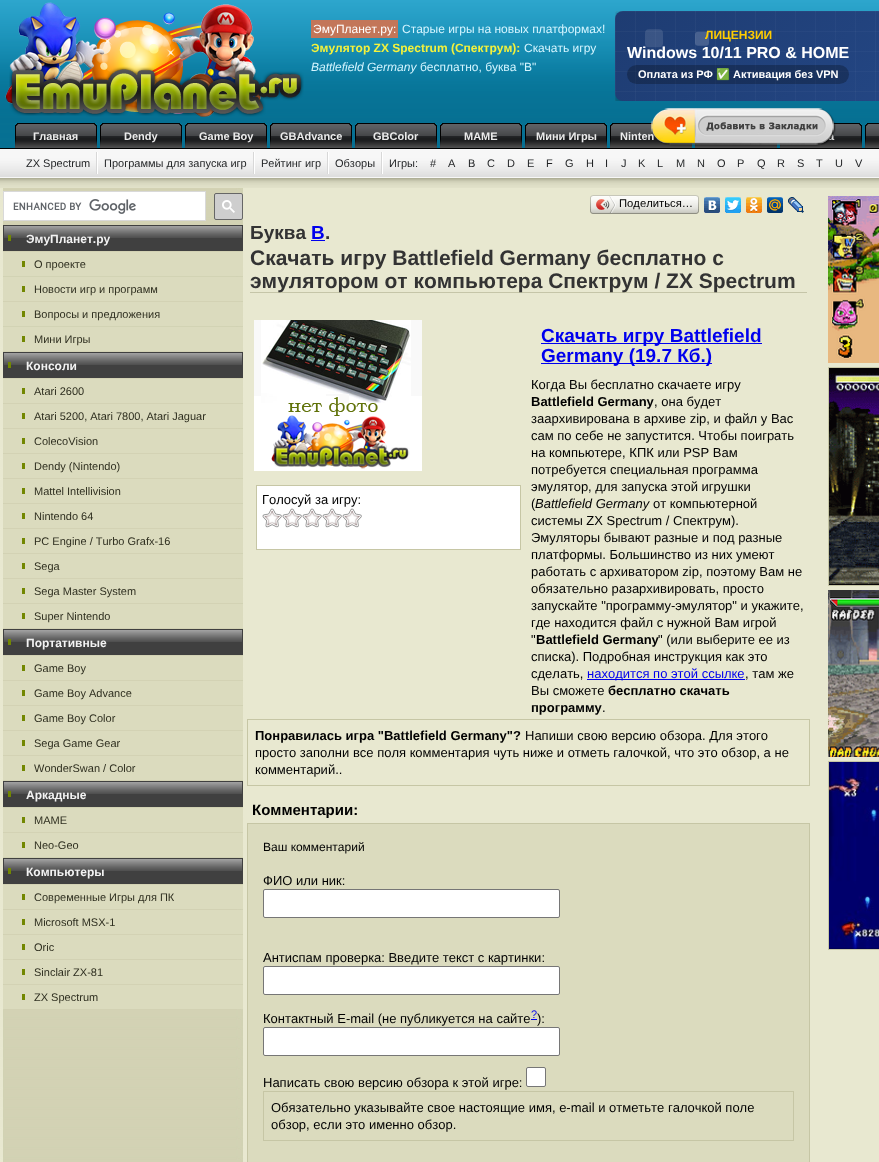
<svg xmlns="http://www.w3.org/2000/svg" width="879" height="1162">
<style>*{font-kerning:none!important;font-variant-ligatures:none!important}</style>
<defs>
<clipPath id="clip1"><rect x="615" y="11" width="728" height="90"/></clipPath>
<linearGradient id="g1" gradientUnits="userSpaceOnUse" x1="775" y1="-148" x2="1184" y2="261"><stop offset="0" stop-color="#1e3c72"/><stop offset="1" stop-color="#2a5298"/></linearGradient>
</defs>
<rect width="100%" height="100%" fill="#fff"/>
<image x="0" y="0" width="879" height="178" href="media/1.png"/>
<image x="5" y="2" width="299" height="115" href="media/2.png"/>
<rect x="311" y="20" width="87" height="18" fill="#c37659"/>
<text x="313" y="33" style="font-family:Liberation Sans;font-size:12px;fill:#fff">ЭмуПланет.ру:</text>
<text x="402" y="33" style="font-family:Liberation Sans;font-size:12px;fill:#d4f5ff">Старые игры на новых платформах!</text>
<text x="311" y="52" style="font-family:Liberation Sans;font-size:12px;font-weight:bold;fill:#f4f23c">Эмулятор ZX Spectrum (Спектрум):</text>
<text x="524" y="52" style="font-family:Liberation Sans;font-size:12px;fill:#d4f5ff">Скачать игру</text>
<text x="311" y="71" style="font-family:Liberation Sans;font-size:12px;font-style:italic;fill:#d4f5ff">Battlefield Germany</text>
<text x="420" y="71" style="font-family:Liberation Sans;font-size:12px;fill:#d4f5ff">бесплатно, буква "B"</text>
<image x="525" y="123" width="82" height="25" href="media/5.png"/>
<image x="610" y="123" width="82" height="25" href="media/5.png"/>
<image x="780" y="123" width="82" height="25" href="media/5.png"/>
<image x="865" y="123" width="14" height="25" href="media/6.png"/>
<g clip-path="url(#clip1)">
<rect x="615" y="15" width="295" height="90" rx="8" fill="#00000066" filter="blur(7.5px)"/>
</g>
<rect x="615" y="11" width="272" height="90" rx="8" fill="url(#g1)"/>
<image x="615" y="11" width="264" height="90" href="media/3.png"/>
<text x="705" y="39" style="font-family:Liberation Sans;font-size:12px;font-weight:bold;fill:#fc0">ЛИЦЕНЗИИ</text>
<text x="627" y="58" style="font-family:Liberation Sans;font-size:16px;font-weight:bold;fill:#fff">Windows 10/11 PRO &amp; HOME</text>
<rect x="627" y="65" width="222" height="19" rx="9.5" fill="#00000040"/>
<text x="638" y="78" style="font-family:Liberation Sans;font-size:11px;font-weight:bold;fill:#fff">Оплата из РФ</text>
<text x="716" y="78" style="font-family:Noto Color Emoji;font-size:11px;font-weight:bold;fill:#fff">✅</text>
<text x="733" y="78" style="font-family:Liberation Sans;font-size:11px;font-weight:bold;fill:#fff">Активация без VPN</text>
<text x="620" y="140" style="font-family:Liberation Sans;font-size:11px;font-weight:bold;fill:#ebebeb">Ninten</text>
<text x="828" y="140" style="font-family:Liberation Sans;font-size:11px;font-weight:bold;fill:#ebebeb">a</text>
<image x="695" y="142" width="82" height="6" href="media/7.png"/>
<image x="651" y="108" width="185" height="39" href="media/4.png"/>
<image x="15" y="123" width="82" height="25" href="media/5.png"/>
<text x="33" y="140" style="font-family:Liberation Sans;font-size:11px;font-weight:bold;fill:#ebebeb">Главная</text>
<image x="100" y="123" width="82" height="25" href="media/5.png"/>
<text x="124" y="140" style="font-family:Liberation Sans;font-size:11px;font-weight:bold;fill:#ebebeb">Dendy</text>
<image x="185" y="123" width="82" height="25" href="media/5.png"/>
<text x="199" y="140" style="font-family:Liberation Sans;font-size:11px;font-weight:bold;fill:#ebebeb">Game Boy</text>
<image x="270" y="123" width="82" height="25" href="media/5.png"/>
<text x="280" y="140" style="font-family:Liberation Sans;font-size:11px;font-weight:bold;fill:#ebebeb">GBAdvance</text>
<image x="355" y="123" width="82" height="25" href="media/5.png"/>
<text x="373" y="140" style="font-family:Liberation Sans;font-size:11px;font-weight:bold;fill:#ebebeb">GBColor</text>
<image x="440" y="123" width="82" height="25" href="media/5.png"/>
<text x="464" y="140" style="font-family:Liberation Sans;font-size:11px;font-weight:bold;fill:#ebebeb">MAME</text>
<text x="536" y="140" style="font-family:Liberation Sans;font-size:11px;font-weight:bold;fill:#ebebeb">Мини Игры</text>
<image x="96" y="152" width="2" height="22" href="media/8.png"/>
<text x="26" y="167" style="font-family:Liberation Sans;font-size:11px;fill:#1f2123">ZX Spectrum</text>
<image x="253" y="152" width="2" height="22" href="media/8.png"/>
<text x="104" y="167" style="font-family:Liberation Sans;font-size:11px;fill:#1f2123">Программы для запуска игр</text>
<image x="327" y="152" width="2" height="22" href="media/8.png"/>
<text x="261" y="167" style="font-family:Liberation Sans;font-size:11px;fill:#1f2123">Рейтинг игр</text>
<image x="381" y="152" width="2" height="22" href="media/8.png"/>
<text x="335" y="167" style="font-family:Liberation Sans;font-size:11px;fill:#1f2123">Обзоры</text>
<text x="389" y="167" style="font-family:Liberation Sans;font-size:11px;fill:#1f2123">Игры:</text>
<text x="430" y="167" style="font-family:Liberation Sans;font-size:11px;fill:#1f2123">#</text>
<text x="448" y="167" style="font-family:Liberation Sans;font-size:11px;fill:#1f2123">A</text>
<text x="468" y="167" style="font-family:Liberation Sans;font-size:11px;fill:#1f2123">B</text>
<text x="487" y="167" style="font-family:Liberation Sans;font-size:11px;fill:#1f2123">C</text>
<text x="507" y="167" style="font-family:Liberation Sans;font-size:11px;fill:#1f2123">D</text>
<text x="527" y="167" style="font-family:Liberation Sans;font-size:11px;fill:#1f2123">E</text>
<text x="546" y="167" style="font-family:Liberation Sans;font-size:11px;fill:#1f2123">F</text>
<text x="565" y="167" style="font-family:Liberation Sans;font-size:11px;fill:#1f2123">G</text>
<text x="586" y="167" style="font-family:Liberation Sans;font-size:11px;fill:#1f2123">H</text>
<text x="605" y="167" style="font-family:Liberation Sans;font-size:11px;fill:#1f2123">I</text>
<text x="621" y="167" style="font-family:Liberation Sans;font-size:11px;fill:#1f2123">J</text>
<text x="638" y="167" style="font-family:Liberation Sans;font-size:11px;fill:#1f2123">K</text>
<text x="657" y="167" style="font-family:Liberation Sans;font-size:11px;fill:#1f2123">L</text>
<text x="676" y="167" style="font-family:Liberation Sans;font-size:11px;fill:#1f2123">M</text>
<text x="697" y="167" style="font-family:Liberation Sans;font-size:11px;fill:#1f2123">N</text>
<text x="717" y="167" style="font-family:Liberation Sans;font-size:11px;fill:#1f2123">O</text>
<text x="737" y="167" style="font-family:Liberation Sans;font-size:11px;fill:#1f2123">P</text>
<text x="757" y="167" style="font-family:Liberation Sans;font-size:11px;fill:#1f2123">Q</text>
<text x="777" y="167" style="font-family:Liberation Sans;font-size:11px;fill:#1f2123">R</text>
<text x="797" y="167" style="font-family:Liberation Sans;font-size:11px;fill:#1f2123">S</text>
<text x="816" y="167" style="font-family:Liberation Sans;font-size:11px;fill:#1f2123">T</text>
<text x="835" y="167" style="font-family:Liberation Sans;font-size:11px;fill:#1f2123">U</text>
<text x="855" y="167" style="font-family:Liberation Sans;font-size:11px;fill:#1f2123">V</text>
<image x="0" y="178" width="879" height="10" href="media/9.png"/>
<image x="0" y="188" width="879" height="974" href="media/10.png"/>
<rect x="3.5" y="191.5" width="202" height="29" fill="#fff" stroke="#d9d9d9"/>
<image x="13" y="199" width="123" height="15" href="media/11.png"/>
<rect x="214.5" y="193.5" width="28" height="26" rx="1.5" fill="#cecece" stroke="#666"/>
<image x="222" y="200" width="13" height="13" href="media/12.png"/>
<image x="4" y="225" width="238" height="26" href="media/13.png"/>
<rect x="242" y="225" width="1" height="26" fill="#404040"/>
<rect x="3" y="225" width="1" height="26" fill="#404040"/>
<text x="26" y="243" style="font-family:Liberation Sans;font-size:12px;font-weight:bold;fill:#f3f3f3">ЭмуПланет.ру</text>
<rect x="8" y="235" width="3" height="6" fill="#728701"/>
<rect x="3" y="252" width="240" height="24" fill="#dbdbbe"/>
<rect x="22" y="261" width="3" height="6" fill="#728701"/>
<text x="34" y="268" style="font-family:Liberation Sans;font-size:11px;fill:#2f2f20">О проекте</text>
<rect x="3" y="277" width="240" height="24" fill="#dbdbbe"/>
<rect x="22" y="286" width="3" height="6" fill="#728701"/>
<text x="34" y="293" style="font-family:Liberation Sans;font-size:11px;fill:#2f2f20">Новости игр и программ</text>
<rect x="3" y="302" width="240" height="24" fill="#dbdbbe"/>
<rect x="22" y="311" width="3" height="6" fill="#728701"/>
<text x="34" y="318" style="font-family:Liberation Sans;font-size:11px;fill:#2f2f20">Вопросы и предложения</text>
<rect x="3" y="327" width="240" height="24" fill="#dbdbbe"/>
<rect x="22" y="336" width="3" height="6" fill="#728701"/>
<text x="34" y="343" style="font-family:Liberation Sans;font-size:11px;fill:#2f2f20">Мини Игры</text>
<image x="4" y="352" width="238" height="26" href="media/13.png"/>
<rect x="242" y="352" width="1" height="26" fill="#404040"/>
<rect x="3" y="352" width="1" height="26" fill="#404040"/>
<text x="26" y="370" style="font-family:Liberation Sans;font-size:12px;font-weight:bold;fill:#f3f3f3">Консоли</text>
<rect x="8" y="362" width="3" height="6" fill="#728701"/>
<rect x="3" y="379" width="240" height="24" fill="#dbdbbe"/>
<rect x="22" y="388" width="3" height="6" fill="#728701"/>
<text x="34" y="395" style="font-family:Liberation Sans;font-size:11px;fill:#2f2f20">Atari 2600</text>
<rect x="3" y="404" width="240" height="24" fill="#dbdbbe"/>
<rect x="22" y="413" width="3" height="6" fill="#728701"/>
<text x="34" y="420" style="font-family:Liberation Sans;font-size:11px;fill:#2f2f20">Atari 5200, Atari 7800, Atari Jaguar</text>
<rect x="3" y="429" width="240" height="24" fill="#dbdbbe"/>
<rect x="22" y="438" width="3" height="6" fill="#728701"/>
<text x="34" y="445" style="font-family:Liberation Sans;font-size:11px;fill:#2f2f20">ColecoVision</text>
<rect x="3" y="454" width="240" height="24" fill="#dbdbbe"/>
<rect x="22" y="463" width="3" height="6" fill="#728701"/>
<text x="34" y="470" style="font-family:Liberation Sans;font-size:11px;fill:#2f2f20">Dendy (Nintendo)</text>
<rect x="3" y="479" width="240" height="24" fill="#dbdbbe"/>
<rect x="22" y="488" width="3" height="6" fill="#728701"/>
<text x="34" y="495" style="font-family:Liberation Sans;font-size:11px;fill:#2f2f20">Mattel Intellivision</text>
<rect x="3" y="504" width="240" height="24" fill="#dbdbbe"/>
<rect x="22" y="513" width="3" height="6" fill="#728701"/>
<text x="34" y="520" style="font-family:Liberation Sans;font-size:11px;fill:#2f2f20">Nintendo 64</text>
<rect x="3" y="529" width="240" height="24" fill="#dbdbbe"/>
<rect x="22" y="538" width="3" height="6" fill="#728701"/>
<text x="34" y="545" style="font-family:Liberation Sans;font-size:11px;fill:#2f2f20">PC Engine / Turbo Grafx-16</text>
<rect x="3" y="554" width="240" height="24" fill="#dbdbbe"/>
<rect x="22" y="563" width="3" height="6" fill="#728701"/>
<text x="34" y="570" style="font-family:Liberation Sans;font-size:11px;fill:#2f2f20">Sega</text>
<rect x="3" y="579" width="240" height="24" fill="#dbdbbe"/>
<rect x="22" y="588" width="3" height="6" fill="#728701"/>
<text x="34" y="595" style="font-family:Liberation Sans;font-size:11px;fill:#2f2f20">Sega Master System</text>
<rect x="3" y="604" width="240" height="24" fill="#dbdbbe"/>
<rect x="22" y="613" width="3" height="6" fill="#728701"/>
<text x="34" y="620" style="font-family:Liberation Sans;font-size:11px;fill:#2f2f20">Super Nintendo</text>
<image x="4" y="629" width="238" height="26" href="media/13.png"/>
<rect x="242" y="629" width="1" height="26" fill="#404040"/>
<rect x="3" y="629" width="1" height="26" fill="#404040"/>
<text x="26" y="647" style="font-family:Liberation Sans;font-size:12px;font-weight:bold;fill:#f3f3f3">Портативные</text>
<rect x="8" y="639" width="3" height="6" fill="#728701"/>
<rect x="3" y="656" width="240" height="24" fill="#dbdbbe"/>
<rect x="22" y="665" width="3" height="6" fill="#728701"/>
<text x="34" y="672" style="font-family:Liberation Sans;font-size:11px;fill:#2f2f20">Game Boy</text>
<rect x="3" y="681" width="240" height="24" fill="#dbdbbe"/>
<rect x="22" y="690" width="3" height="6" fill="#728701"/>
<text x="34" y="697" style="font-family:Liberation Sans;font-size:11px;fill:#2f2f20">Game Boy Advance</text>
<rect x="3" y="706" width="240" height="24" fill="#dbdbbe"/>
<rect x="22" y="715" width="3" height="6" fill="#728701"/>
<text x="34" y="722" style="font-family:Liberation Sans;font-size:11px;fill:#2f2f20">Game Boy Color</text>
<rect x="3" y="731" width="240" height="24" fill="#dbdbbe"/>
<rect x="22" y="740" width="3" height="6" fill="#728701"/>
<text x="34" y="747" style="font-family:Liberation Sans;font-size:11px;fill:#2f2f20">Sega Game Gear</text>
<rect x="3" y="756" width="240" height="24" fill="#dbdbbe"/>
<rect x="22" y="765" width="3" height="6" fill="#728701"/>
<text x="34" y="772" style="font-family:Liberation Sans;font-size:11px;fill:#2f2f20">WonderSwan / Color</text>
<image x="4" y="781" width="238" height="26" href="media/13.png"/>
<rect x="242" y="781" width="1" height="26" fill="#404040"/>
<rect x="3" y="781" width="1" height="26" fill="#404040"/>
<text x="26" y="799" style="font-family:Liberation Sans;font-size:12px;font-weight:bold;fill:#f3f3f3">Аркадные</text>
<rect x="8" y="791" width="3" height="6" fill="#728701"/>
<rect x="3" y="808" width="240" height="24" fill="#dbdbbe"/>
<rect x="22" y="817" width="3" height="6" fill="#728701"/>
<text x="34" y="824" style="font-family:Liberation Sans;font-size:11px;fill:#2f2f20">MAME</text>
<rect x="3" y="833" width="240" height="24" fill="#dbdbbe"/>
<rect x="22" y="842" width="3" height="6" fill="#728701"/>
<text x="34" y="849" style="font-family:Liberation Sans;font-size:11px;fill:#2f2f20">Neo-Geo</text>
<image x="4" y="858" width="238" height="26" href="media/13.png"/>
<rect x="242" y="858" width="1" height="26" fill="#404040"/>
<rect x="3" y="858" width="1" height="26" fill="#404040"/>
<text x="26" y="876" style="font-family:Liberation Sans;font-size:12px;font-weight:bold;fill:#f3f3f3">Компьютеры</text>
<rect x="8" y="868" width="3" height="6" fill="#728701"/>
<rect x="3" y="885" width="240" height="24" fill="#dbdbbe"/>
<rect x="22" y="894" width="3" height="6" fill="#728701"/>
<text x="34" y="901" style="font-family:Liberation Sans;font-size:11px;fill:#2f2f20">Современные Игры для ПК</text>
<rect x="3" y="910" width="240" height="24" fill="#dbdbbe"/>
<rect x="22" y="919" width="3" height="6" fill="#728701"/>
<text x="34" y="926" style="font-family:Liberation Sans;font-size:11px;fill:#2f2f20">Microsoft MSX-1</text>
<rect x="3" y="935" width="240" height="24" fill="#dbdbbe"/>
<rect x="22" y="944" width="3" height="6" fill="#728701"/>
<text x="34" y="951" style="font-family:Liberation Sans;font-size:11px;fill:#2f2f20">Oric</text>
<rect x="3" y="960" width="240" height="24" fill="#dbdbbe"/>
<rect x="22" y="969" width="3" height="6" fill="#728701"/>
<text x="34" y="976" style="font-family:Liberation Sans;font-size:11px;fill:#2f2f20">Sinclair ZX-81</text>
<rect x="3" y="985" width="240" height="24" fill="#dbdbbe"/>
<rect x="22" y="994" width="3" height="6" fill="#728701"/>
<text x="34" y="1001" style="font-family:Liberation Sans;font-size:11px;fill:#2f2f20">ZX Spectrum</text>
<image x="593" y="195" width="103" height="19" href="media/14.png"/>
<image x="590" y="195" width="3" height="19" href="media/15.png"/>
<image x="596" y="196" width="20" height="17" href="media/16.png"/>
<text x="619" y="207" style="font-family:Liberation Sans;font-size:11.25px;fill:#000">Поделиться…</text>
<image x="696" y="195" width="3" height="19" href="media/17.png"/>
<image x="704" y="197" width="16" height="16" href="media/18.png"/>
<image x="725" y="197" width="16" height="16" href="media/19.png"/>
<image x="746" y="197" width="16" height="16" href="media/20.png"/>
<image x="767" y="197" width="16" height="16" href="media/21.png"/>
<image x="788" y="197" width="16" height="16" href="media/22.png"/>
<text x="250" y="239" style="font-family:Liberation Sans;font-size:19px;font-weight:bold;fill:#333">Буква</text>
<text x="311" y="239" style="font-family:Liberation Sans;font-size:19px;font-weight:bold;fill:#00e">B</text>
<rect x="311" y="240" width="14" height="1" fill="#00e"/>
<text x="325" y="239" style="font-family:Liberation Sans;font-size:19px;font-weight:bold;fill:#333">.</text>
<rect x="250" y="292" width="557" height="1" fill="#c5c5a8"/>
<text x="250" y="265" style="font-family:Liberation Sans;font-size:21px;font-weight:bold;fill:#333">Скачать игру Battlefield Germany бесплатно с</text>
<text x="250" y="288" style="font-family:Liberation Sans;font-size:21px;font-weight:bold;fill:#333">эмулятором от компьютера Спектрум / ZX Spectrum</text>
<image x="254" y="320" width="168" height="151" href="media/23.png"/>
<rect x="256.5" y="485.5" width="264" height="64" fill="#fff" stroke="#c6c6a5"/>
<text x="262" y="504" style="font-family:Liberation Sans;font-size:13px;fill:#000">Голосуй за игру:</text>
<image x="262" y="508" width="100" height="20" href="media/24.png"/>
<rect x="541" y="343" width="221" height="1" fill="#00e"/>
<text x="541" y="342" style="font-family:Liberation Sans;font-size:19px;font-weight:bold;fill:#00e">Скачать игру Battlefield</text>
<rect x="541" y="363" width="171" height="1" fill="#00e"/>
<text x="541" y="362" style="font-family:Liberation Sans;font-size:19px;font-weight:bold;fill:#00e">Germany (19.7 Кб.)</text>
<text x="531" y="389" style="font-family:Liberation Sans;font-size:13px;fill:#000">Когда Вы бесплатно скачаете игру</text>
<text x="531" y="406" style="font-family:Liberation Sans;font-size:13px;font-weight:bold;fill:#000">Battlefield Germany</text>
<text x="654" y="406" style="font-family:Liberation Sans;font-size:13px;fill:#000">, она будет</text>
<text x="531" y="423" style="font-family:Liberation Sans;font-size:13px;fill:#000">заархивирована в архиве zip, и файл у Вас</text>
<text x="531" y="440" style="font-family:Liberation Sans;font-size:13px;fill:#000">сам по себе не запустится. Чтобы поиграть</text>
<text x="531" y="457" style="font-family:Liberation Sans;font-size:13px;fill:#000">на компьютере, КПК или PSP Вам</text>
<text x="531" y="474" style="font-family:Liberation Sans;font-size:13px;fill:#000">потребуется специальная программа</text>
<text x="531" y="491" style="font-family:Liberation Sans;font-size:13px;fill:#000">эмулятор, для запуска этой игрушки</text>
<text x="531" y="508" style="font-family:Liberation Sans;font-size:13px;fill:#000">(</text>
<text x="535" y="508" style="font-family:Liberation Sans;font-size:13px;font-style:italic;fill:#000">Battlefield Germany</text>
<text x="653" y="508" style="font-family:Liberation Sans;font-size:13px;fill:#000">от компьютерной</text>
<text x="531" y="525" style="font-family:Liberation Sans;font-size:13px;fill:#000">системы ZX Spectrum / Спектрум).</text>
<text x="531" y="542" style="font-family:Liberation Sans;font-size:13px;fill:#000">Эмуляторы бывают разные и под разные</text>
<text x="531" y="559" style="font-family:Liberation Sans;font-size:13px;fill:#000">платформы. Большинство из них умеют</text>
<text x="531" y="576" style="font-family:Liberation Sans;font-size:13px;fill:#000">работать с архиватором zip, поэтому Вам не</text>
<text x="531" y="593" style="font-family:Liberation Sans;font-size:13px;fill:#000">обязательно разархивировать, просто</text>
<text x="531" y="610" style="font-family:Liberation Sans;font-size:13px;fill:#000">запускайте "программу-эмулятор" и укажите,</text>
<text x="531" y="627" style="font-family:Liberation Sans;font-size:13px;fill:#000">где находится файл с нужной Вам игрой</text>
<text x="531" y="644" style="font-family:Liberation Sans;font-size:13px;fill:#000">"</text>
<text x="536" y="644" style="font-family:Liberation Sans;font-size:13px;font-weight:bold;fill:#000">Battlefield Germany</text>
<text x="658" y="644" style="font-family:Liberation Sans;font-size:13px;fill:#000">" (или выберите ее из</text>
<text x="531" y="661" style="font-family:Liberation Sans;font-size:13px;fill:#000">списка). Подробная инструкция как это</text>
<text x="531" y="678" style="font-family:Liberation Sans;font-size:13px;fill:#000">сделать,</text>
<rect x="587" y="679" width="158" height="1" fill="#00e"/>
<text x="587" y="678" style="font-family:Liberation Sans;font-size:13px;fill:#00e">находится по этой ссылке</text>
<text x="745" y="678" style="font-family:Liberation Sans;font-size:13px;fill:#000">, там же</text>
<text x="531" y="695" style="font-family:Liberation Sans;font-size:13px;fill:#000">Вы сможете</text>
<text x="608" y="695" style="font-family:Liberation Sans;font-size:13px;font-weight:bold;fill:#000">бесплатно скачать</text>
<text x="531" y="712" style="font-family:Liberation Sans;font-size:13px;font-weight:bold;fill:#000">программу</text>
<text x="602" y="712" style="font-family:Liberation Sans;font-size:13px;fill:#000">.</text>
<rect x="247.5" y="719.5" width="562" height="66" fill="none" stroke="#c6c6a5"/>
<text x="255" y="740" style="font-family:Liberation Sans;font-size:13px;font-weight:bold;fill:#000">Понравилась игра "Battlefield Germany"?</text>
<text x="525" y="740" style="font-family:Liberation Sans;font-size:13px;fill:#000">Напиши свою версию обзора. Для этого</text>
<text x="255" y="757" style="font-family:Liberation Sans;font-size:13px;fill:#000">просто заполни все поля комментария чуть ниже и отметь галочкой, что это обзор, а не</text>
<text x="255" y="774" style="font-family:Liberation Sans;font-size:13px;fill:#000">комментарий..</text>
<text x="252" y="815" style="font-family:Liberation Sans;font-size:15px;font-weight:bold;fill:#000">Комментарии:</text>
<rect x="247.5" y="823.5" width="562" height="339" fill="#dbdbbe" stroke="#c6c6a5"/>
<text x="263" y="851" style="font-family:Liberation Sans;font-size:12px;fill:#000">Ваш комментарий</text>
<text x="263" y="885" style="font-family:Liberation Sans;font-size:13px;fill:#000">ФИО или ник:</text>
<rect x="263.5" y="889.5" width="296" height="28" rx="1.5" fill="#fff" stroke="#767676"/>
<text x="263" y="962" style="font-family:Liberation Sans;font-size:13px;fill:#000">Антиспам проверка: Введите текст с картинки:</text>
<rect x="263.5" y="966.5" width="296" height="28" rx="1.5" fill="#fff" stroke="#767676"/>
<text x="263" y="1023" style="font-family:Liberation Sans;font-size:13px;fill:#000">Контактный E-mail (не публикуется на сайте</text>
<text x="531" y="1018" style="font-family:Liberation Sans;font-size:11px;fill:#00e">?</text>
<rect x="531" y="1019" width="6" height="1" fill="#00e"/>
<text x="537" y="1023" style="font-family:Liberation Sans;font-size:13px;fill:#000">):</text>
<rect x="263.5" y="1027.5" width="296" height="28" rx="1.5" fill="#fff" stroke="#767676"/>
<text x="263" y="1087" style="font-family:Liberation Sans;font-size:13px;fill:#000">Написать свою версию обзора к этой игре:</text>
<rect x="526.5" y="1067.5" width="19" height="19" rx="1.5" fill="#fff" stroke="#767676"/>
<rect x="263.5" y="1091.5" width="530" height="49" fill="none" stroke="#c6c6a5"/>
<text x="271" y="1112" style="font-family:Liberation Sans;font-size:13px;fill:#000">Обязательно указывайте свое настоящие имя, e-mail и отметьте</text>
<text x="668" y="1112" style="font-family:Liberation Sans;font-size:13px;fill:#000">галочкой поле</text>
<text x="271" y="1129" style="font-family:Liberation Sans;font-size:13px;fill:#000">обзор, если это именно обзор.</text>
<image x="828" y="196" width="51" height="167" href="media/25.png"/>
<rect x="828.5" y="367.5" width="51" height="218" fill="none" stroke="#c6c6a5"/>
<image x="829" y="368" width="50" height="217" href="media/26.png"/>
<image x="828" y="590" width="51" height="167" href="media/27.png"/>
<rect x="828.5" y="761.5" width="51" height="188" fill="none" stroke="#c6c6a5"/>
<image x="829" y="762" width="50" height="187" href="media/28.png"/>
</svg>
